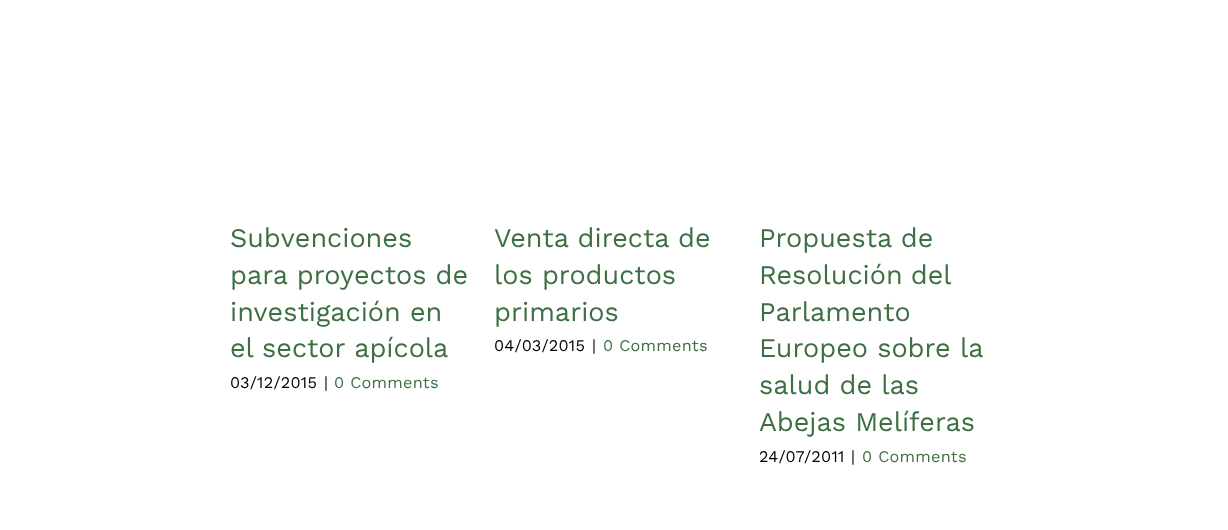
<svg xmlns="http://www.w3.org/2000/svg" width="1228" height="530">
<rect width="100%" height="100%" fill="#fff"/>
<text x="230" y="247" style="font-family:Work Sans;font-size:27px;fill:#3d6f42">Subvenciones</text>
<text x="230" y="284" style="font-family:Work Sans;font-size:27px;fill:#3d6f42">para proyectos de</text>
<text x="230" y="321" style="font-family:Work Sans;font-size:27px;fill:#3d6f42">investigación en</text>
<text x="230" y="357" style="font-family:Work Sans;font-size:27px;fill:#3d6f42">el sector apícola</text>
<text x="230" y="388" style="font-family:Work Sans;font-size:16.25px;letter-spacing:0.25px;fill:#000">03/12/2015</text>
<text x="324" y="388" style="font-family:Work Sans;font-size:16.25px;letter-spacing:0.25px;fill:#000">|</text>
<text x="334" y="388" style="font-family:Work Sans;font-size:16.25px;letter-spacing:0.25px;fill:#3d6f42">0 Comments</text>
<text x="494" y="247" style="font-family:Work Sans;font-size:27px;fill:#3d6f42">Venta directa de</text>
<text x="494" y="284" style="font-family:Work Sans;font-size:27px;fill:#3d6f42">los productos</text>
<text x="494" y="321" style="font-family:Work Sans;font-size:27px;fill:#3d6f42">primarios</text>
<text x="494" y="351" style="font-family:Work Sans;font-size:16.25px;letter-spacing:0.25px;fill:#000">04/03/2015</text>
<text x="592" y="351" style="font-family:Work Sans;font-size:16.25px;letter-spacing:0.25px;fill:#000">|</text>
<text x="603" y="351" style="font-family:Work Sans;font-size:16.25px;letter-spacing:0.25px;fill:#3d6f42">0 Comments</text>
<text x="759" y="247" style="font-family:Work Sans;font-size:27px;fill:#3d6f42">Propuesta de</text>
<text x="759" y="284" word-spacing="-1" style="font-family:Work Sans;font-size:27px;fill:#3d6f42">Resolución del</text>
<text x="759" y="321" style="font-family:Work Sans;font-size:27px;fill:#3d6f42">Parlamento</text>
<text x="759" y="357" style="font-family:Work Sans;font-size:27px;fill:#3d6f42">Europeo sobre la</text>
<text x="759" y="394" style="font-family:Work Sans;font-size:27px;fill:#3d6f42">salud de las</text>
<text x="759" y="431" style="font-family:Work Sans;font-size:27px;fill:#3d6f42">Abejas Melíferas</text>
<text x="759" y="462" style="font-family:Work Sans;font-size:16.25px;letter-spacing:0.25px;fill:#000">24/07/2011</text>
<text x="851" y="462" style="font-family:Work Sans;font-size:16.25px;letter-spacing:0.25px;fill:#000">|</text>
<text x="862" y="462" style="font-family:Work Sans;font-size:16.25px;letter-spacing:0.25px;fill:#3d6f42">0 Comments</text>
</svg>
